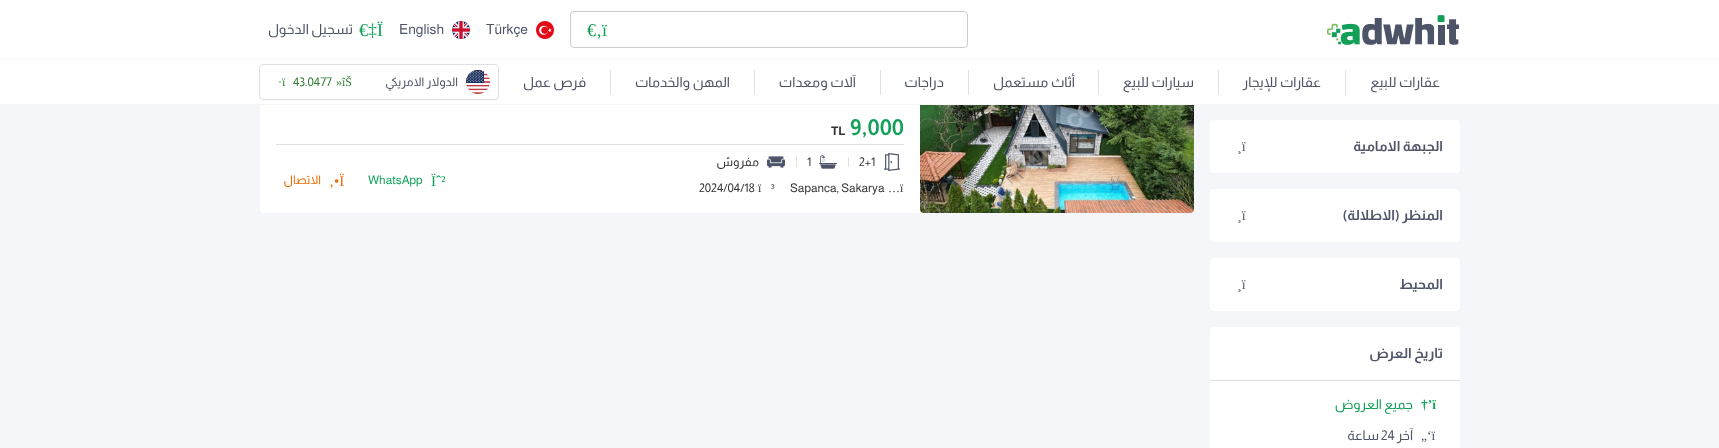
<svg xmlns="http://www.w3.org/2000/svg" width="1719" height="448">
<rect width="100%" height="100%" fill="#f5f6fa"/>
<rect width="1719" height="59" fill="#fff"/>
<rect y="59" width="1719" height="1" fill="#f5f5f5"/>
<image x="1327" y="15" width="132" height="30" href="media/1.png"/>
<rect x="570.5" y="11.5" width="397" height="36" rx="3.5" fill="none" stroke="#ccc"/>
<text x="587" y="36" style="font-family:Liberation Serif;font-size:18px;fill:#12a058">€‚ï</text>
<image x="536" y="21" width="18" height="18" href="media/2.png"/>
<text x="486" y="34" style="font-family:Almarai;font-size:14px;fill:#4e5468">Türkçe</text>
<image x="452" y="21" width="18" height="18" href="media/3.png"/>
<text x="399" y="34" style="font-family:Almarai;font-size:14px;fill:#4e5468">English</text>
<text x="359" y="36" style="font-family:Liberation Serif;font-size:18px;fill:#12a058">€‡Ï</text>
<text x="353" y="34" style="font-family:Almarai;font-size:14px;direction:rtl;fill:#4e5468">تسجيل الدخول</text>
<rect x="260" y="68" width="934" height="145" rx="4" fill="#fff"/>
<rect y="60" width="1719" height="44" fill="#fff"/>
<rect y="104" width="1719" height="1" fill="#f5f5f5"/>
<text x="1440" y="87" style="font-family:Almarai;font-size:14px;direction:rtl;fill:#4e5468">عقارات للبيع</text>
<rect x="1345" y="70" width="1" height="25" fill="#e0e0e0"/>
<text x="1321" y="87" style="font-family:Almarai;font-size:14px;direction:rtl;fill:#4e5468">عقارات للإيجار</text>
<rect x="1218" y="70" width="1" height="25" fill="#e0e0e0"/>
<text x="1194" y="87" style="font-family:Almarai;font-size:14px;direction:rtl;fill:#4e5468">سيارات للبيع</text>
<rect x="1098" y="70" width="1" height="25" fill="#e0e0e0"/>
<text x="1075" y="87" style="font-family:Almarai;font-size:14px;direction:rtl;fill:#4e5468">أثاث مستعمل</text>
<rect x="968" y="70" width="1" height="25" fill="#e0e0e0"/>
<text x="944" y="87" style="font-family:Almarai;font-size:14px;direction:rtl;fill:#4e5468">دراجات</text>
<rect x="880" y="70" width="1" height="25" fill="#e0e0e0"/>
<text x="856" y="87" style="font-family:Almarai;font-size:14px;direction:rtl;fill:#4e5468">آلات ومعدات</text>
<rect x="754" y="70" width="1" height="25" fill="#e0e0e0"/>
<text x="730" y="87" style="font-family:Almarai;font-size:14px;direction:rtl;fill:#4e5468">المهن والخدمات</text>
<rect x="610" y="70" width="1" height="25" fill="#e0e0e0"/>
<text x="586" y="87" style="font-family:Almarai;font-size:14px;direction:rtl;fill:#4e5468">فرص عمل</text>
<rect x="259.5" y="64.5" width="239" height="35" rx="3.5" fill="none" stroke="#e0e0e0"/>
<image x="466" y="70" width="24" height="24" href="media/4.png"/>
<text x="458" y="86" style="font-family:Almarai;font-size:12px;direction:rtl;fill:#4e5468">الدولار الامريكي</text>
<text x="336" y="86" style="font-family:Liberation Serif;font-size:12px;fill:#2e7d32">»îŠ</text>
<text x="293" y="86" style="font-family:Almarai;font-size:12px;fill:#2e7d32">43.0477</text>
<text x="278" y="86" style="font-family:Liberation Serif;font-size:12px;fill:#2e7d32">·ï</text>
<rect x="1210" y="120" width="250" height="53" rx="4" fill="#fff"/>
<text x="1443" y="151" style="font-family:Almarai;font-size:14px;font-weight:bold;direction:rtl;fill:#4e5468">الجبهة الامامية</text>
<text x="1237" y="151" style="font-family:Liberation Serif;font-size:14px;fill:#4e5468">¸ï</text>
<rect x="1210" y="189" width="250" height="53" rx="4" fill="#fff"/>
<text x="1443" y="220" style="font-family:Almarai;font-size:14px;font-weight:bold;direction:rtl;fill:#4e5468">المنظر (الاطلالة)</text>
<text x="1237" y="220" style="font-family:Liberation Serif;font-size:14px;fill:#4e5468">¸ï</text>
<rect x="1210" y="258" width="250" height="53" rx="4" fill="#fff"/>
<text x="1443" y="289" style="font-family:Almarai;font-size:14px;font-weight:bold;direction:rtl;fill:#4e5468">المحيط</text>
<text x="1237" y="289" style="font-family:Liberation Serif;font-size:14px;fill:#4e5468">¸ï</text>
<rect x="1210" y="327" width="250" height="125" rx="4" fill="#fff"/>
<rect x="1210" y="380" width="250" height="1" fill="#e0e0e0"/>
<text x="1443" y="358" style="font-family:Almarai;font-size:14px;font-weight:bold;direction:rtl;fill:#4e5468">تاريخ العرض</text>
<text x="1421" y="409" style="font-family:Liberation Serif;font-size:13.5px;font-weight:bold;fill:#12a058">†’ï</text>
<text x="1413" y="409" style="font-family:Almarai;font-size:13.5px;direction:rtl;fill:#12a058">جميع العروض</text>
<text x="1421" y="440" style="font-family:Liberation Serif;font-size:13.5px;fill:#4e5468">„‘ï</text>
<text x="1413" y="440" style="font-family:Almarai;font-size:13.5px;direction:rtl;fill:#4e5468">آخر</text>
<text x="1381" y="440" style="font-family:Almarai;font-size:13.5px;fill:#4e5468">24</text>
<text x="1379" y="440" style="font-family:Almarai;font-size:13.5px;direction:rtl;fill:#4e5468">ساعة</text>
<image x="920" y="105" width="274" height="108" href="media/5.png"/>
<text x="850" y="135" style="font-family:Almarai;font-size:22px;font-weight:bold;fill:#12a058">9,000</text>
<text x="831" y="135" style="font-family:Almarai;font-size:12px;font-weight:bold;fill:#333">TL</text>
<rect x="276" y="144" width="628" height="1" fill="#e0e0e0"/>
<image x="884" y="153" width="16" height="18" href="media/6.png"/>
<text x="859" y="166" style="font-family:Almarai;font-size:12px;fill:#333">2+1</text>
<rect x="848" y="157" width="1" height="10" fill="#e0e0e0"/>
<image x="819" y="155" width="18" height="14" href="media/7.png"/>
<text x="807" y="166" style="font-family:Almarai;font-size:12px;fill:#333">1</text>
<rect x="796" y="157" width="1" height="10" fill="#e0e0e0"/>
<image x="767" y="156" width="18" height="12" href="media/8.png"/>
<text x="759" y="166" style="font-family:Almarai;font-size:12px;direction:rtl;fill:#333">مفروش</text>
<text x="888" y="192" style="font-family:Liberation Serif;font-size:12px;fill:#333">…ï</text>
<text x="790" y="192" style="font-family:Almarai;font-size:12px;fill:#333">Sapanca, Sakarya</text>
<text x="771" y="192" style="font-family:Liberation Serif;font-size:12px;fill:#333">³</text>
<text x="758" y="192" style="font-family:Liberation Serif;font-size:12px;fill:#333">ï</text>
<text x="699" y="192" style="font-family:Almarai;font-size:12px;fill:#333">2024/04/18</text>
<text x="431" y="186" style="font-family:Liberation Serif;font-size:15px;fill:#12a058">Ïˆ²</text>
<text x="368" y="184" style="font-family:Almarai;font-size:12px;fill:#12a058">WhatsApp</text>
<text x="329" y="186" style="font-family:Liberation Serif;font-size:15px;fill:#ed6c02">‚•Ï</text>
<text x="321" y="184" style="font-family:Almarai;font-size:12px;direction:rtl;fill:#ed6c02">الاتصال</text>
</svg>
